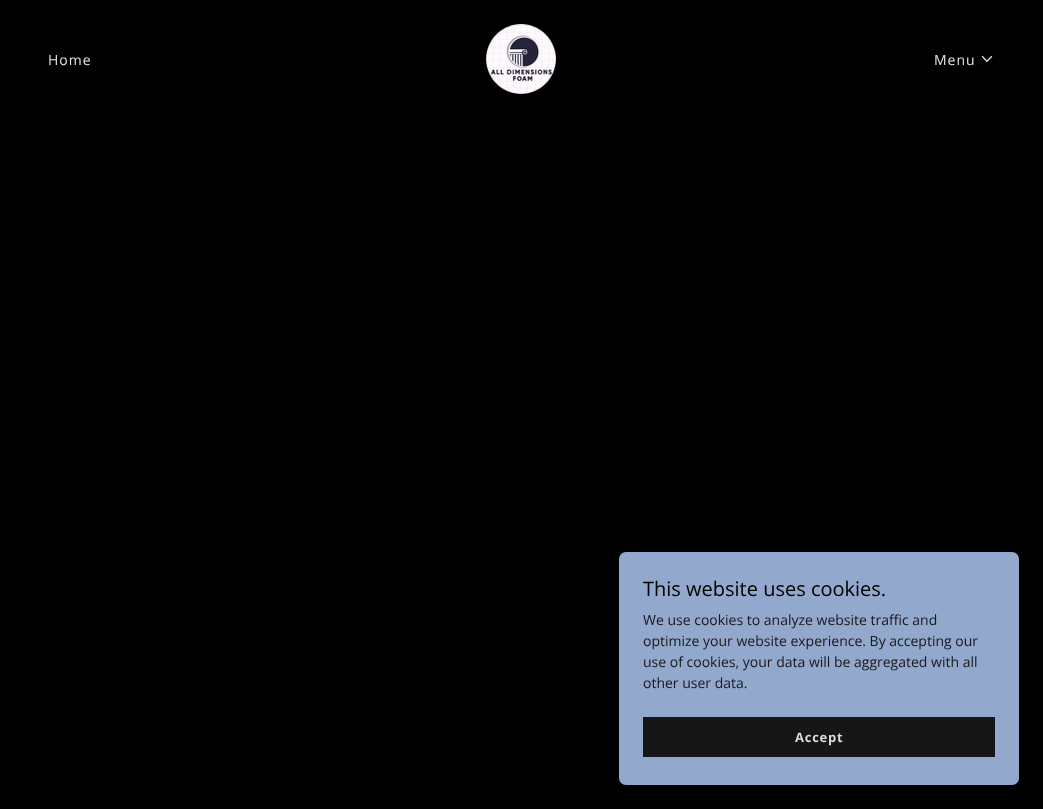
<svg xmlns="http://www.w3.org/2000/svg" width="1043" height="809">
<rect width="100%" height="100%" fill="#000"/>
<text x="48" y="65" style="font-family:Open Sans;font-size:14px;letter-spacing:1px;fill:#e2e2e2">Home</text>
<image x="486" y="24" width="70" height="70" href="media/1.png"/>
<text x="934" y="65" style="font-family:Open Sans;font-size:14px;letter-spacing:1px;fill:#e2e2e2">Menu</text>
<image x="981" y="55" width="12" height="8" href="media/2.png"/>
<rect x="619" y="552" width="400" height="233" rx="7" fill="#93a8cd"/>
<text x="643" y="596" style="font-family:Open Sans;font-size:20px;fill:#000">This website uses cookies.</text>
<text x="643" y="625" style="font-family:Open Sans;font-size:14px;fill:#18181a">We use cookies to analyze website traffic and</text>
<text x="643" y="646" style="font-family:Open Sans;font-size:14px;fill:#18181a">optimize your website experience. By accepting our</text>
<text x="643" y="667" style="font-family:Open Sans;font-size:14px;fill:#18181a">use of cookies, your data will be aggregated with all</text>
<text x="643" y="688" style="font-family:Open Sans;font-size:14px;fill:#18181a">other user data.</text>
<rect x="643" y="717" width="352" height="40" fill="#161616"/>
<text x="795" y="742" style="font-family:Open Sans;font-size:13px;font-weight:bold;letter-spacing:0.75px;fill:#dbdbdb">Accept</text>
</svg>
